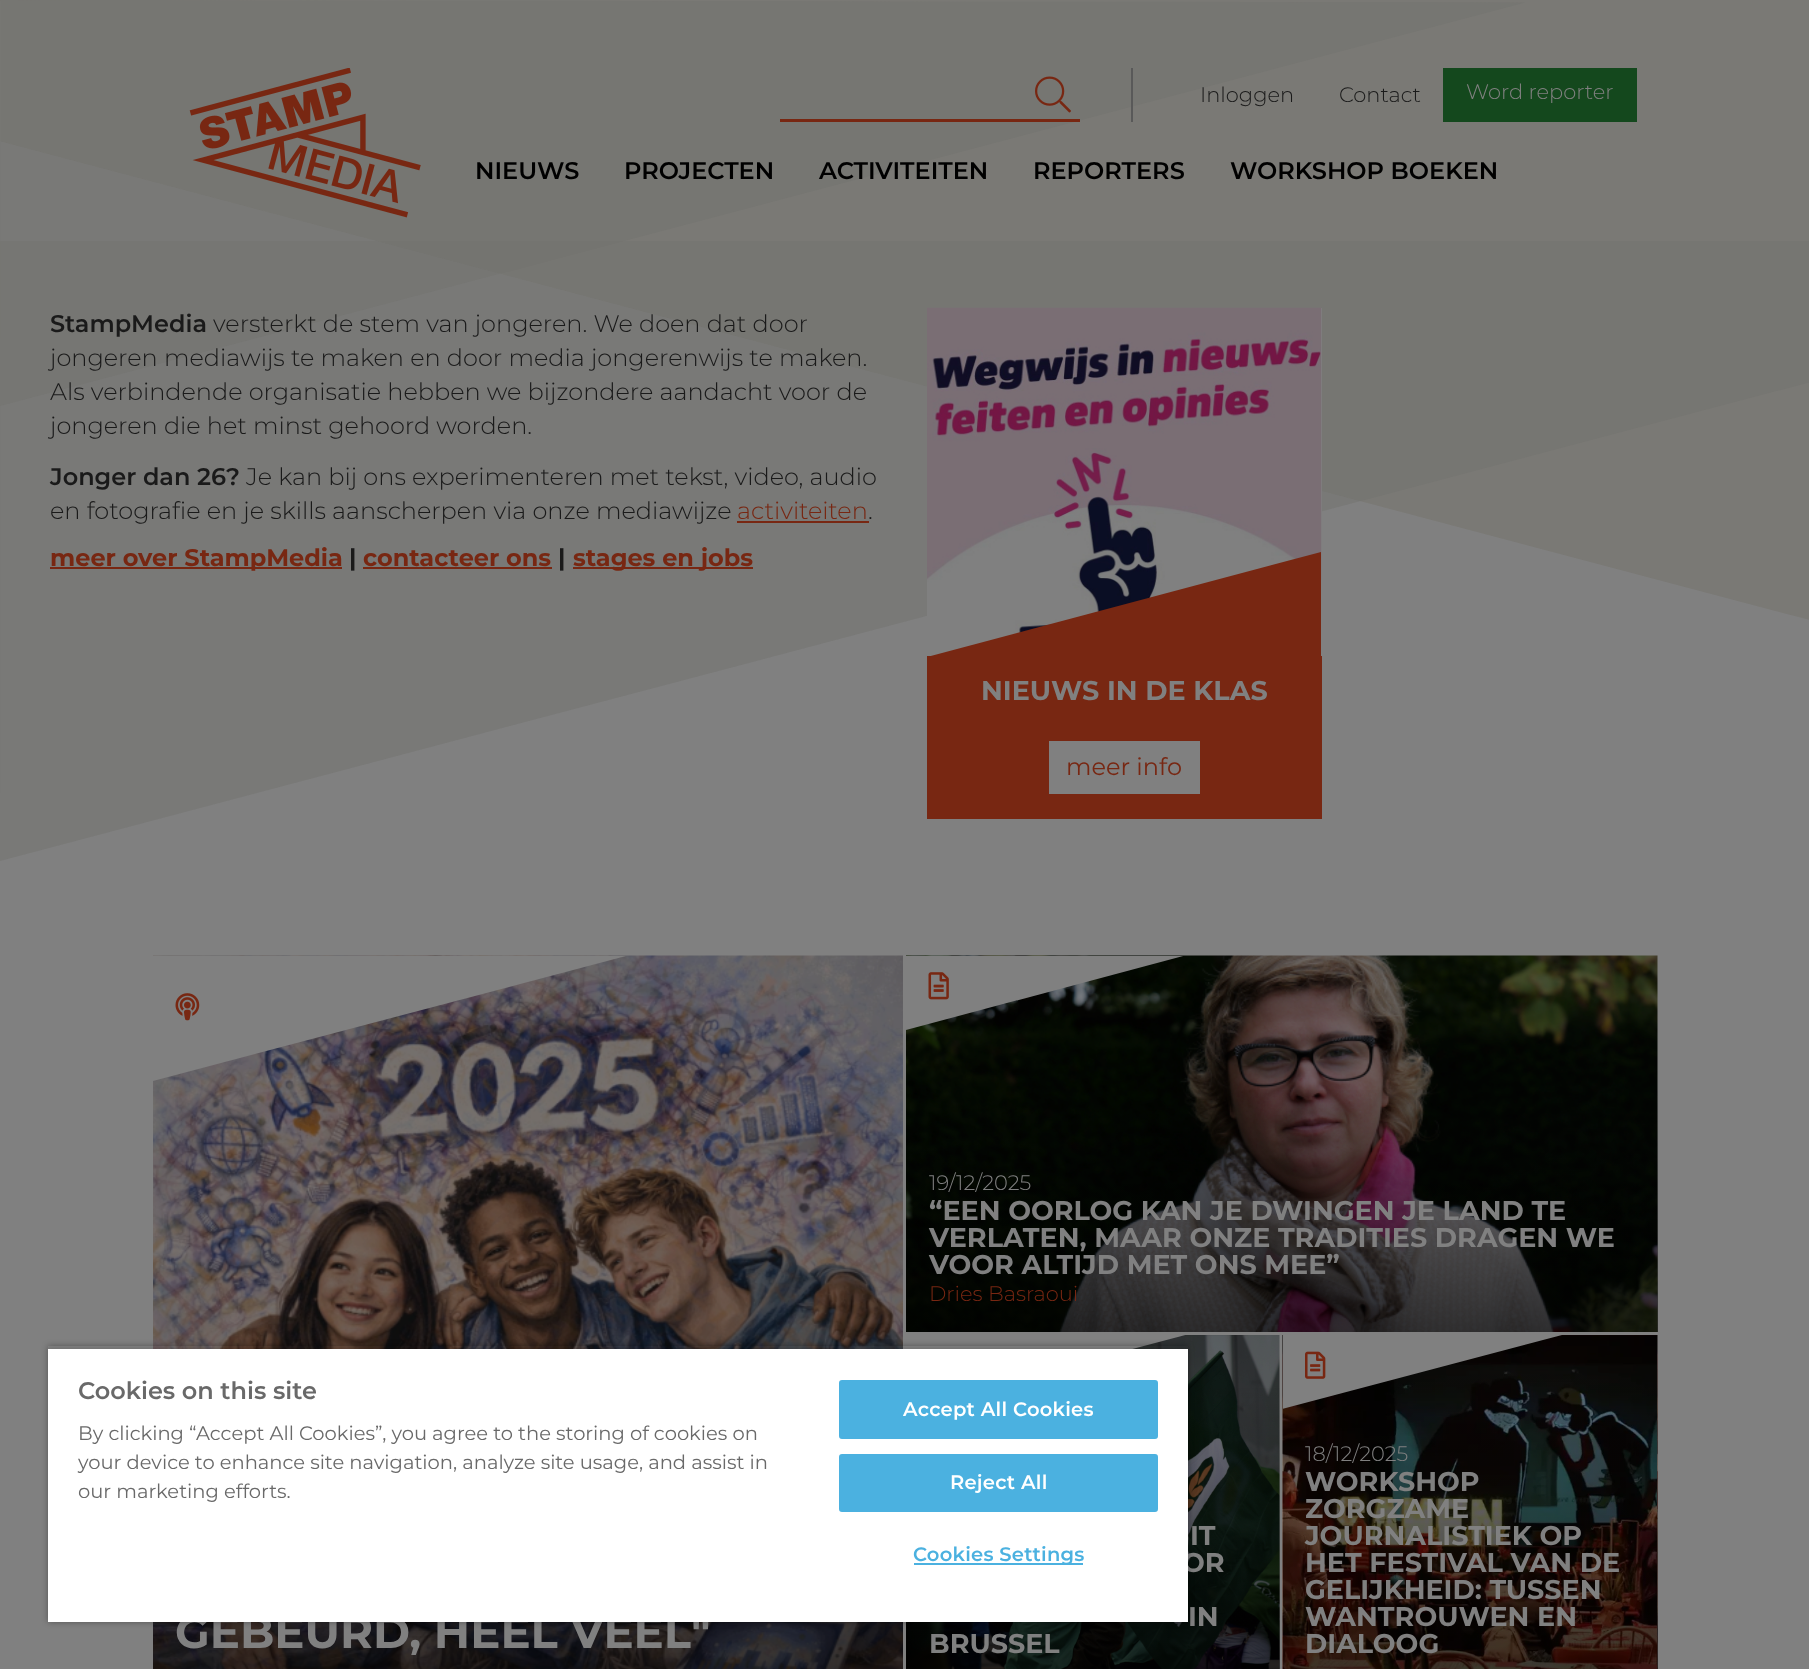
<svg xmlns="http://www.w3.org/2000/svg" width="1809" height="1669">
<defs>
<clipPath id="clip1"><rect x="906" y="956" width="473" height="75"/></clipPath>
<linearGradient id="g1" gradientUnits="userSpaceOnUse" x1="1282" y1="1332" x2="1282" y2="1079"><stop offset="0" stop-color="#000" stop-opacity="0.6"/><stop offset="1" stop-color="#000" stop-opacity="0"/></linearGradient>
<linearGradient id="g2" gradientUnits="userSpaceOnUse" x1="1093" y1="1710" x2="1093" y2="1376"><stop offset="0" stop-color="#000" stop-opacity="0.6"/><stop offset="1" stop-color="#000" stop-opacity="0"/></linearGradient>
<clipPath id="clip2"><rect x="906" y="1335" width="374" height="75"/></clipPath>
<linearGradient id="g3" gradientUnits="userSpaceOnUse" x1="1470" y1="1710" x2="1470" y2="1349"><stop offset="0" stop-color="#000" stop-opacity="0.6"/><stop offset="1" stop-color="#000" stop-opacity="0"/></linearGradient>
<clipPath id="clip3"><rect x="1283" y="1335" width="375" height="75"/></clipPath>
<clipPath id="clip4"><path d="M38 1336h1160v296h-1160zm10 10h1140v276h-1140z" clip-rule="evenodd"/></clipPath>
<clipPath id="clip5"><rect x="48" y="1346" width="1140" height="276"/></clipPath>
</defs>
<rect width="100%" height="100%" fill="#808080"/>
<image x="0" y="0" width="1809" height="861" href="media/1.png"/>
<image x="189" y="68" width="232" height="150" href="media/2.png"/>
<rect x="1131" y="68" width="2" height="54" fill="#595959"/>
<image x="1035" y="76" width="36" height="37" href="media/3.png"/>
<rect x="780" y="119" width="300" height="3" fill="#782712"/>
<text x="1200" y="102" style="font-family:Montserrat;font-size:21px;font-weight:300;fill:#1a1a1a">Inloggen</text>
<text x="1339" y="102" style="font-family:Montserrat;font-size:21px;font-weight:300;fill:#1a1a1a">Contact</text>
<rect x="1443" y="68" width="194" height="54" fill="#14481d"/>
<text x="1466" y="99" style="font-family:Montserrat;font-size:21px;font-weight:300;fill:#808080">Word reporter</text>
<text x="475" y="179" style="font-family:Montserrat;font-size:24px;font-weight:600;fill:#000">NIEUWS</text>
<text x="624" y="179" style="font-family:Montserrat;font-size:24px;font-weight:600;fill:#000">PROJECTEN</text>
<text x="819" y="179" style="font-family:Montserrat;font-size:24px;font-weight:600;fill:#000">ACTIVITEITEN</text>
<text x="1033" y="179" style="font-family:Montserrat;font-size:24px;font-weight:600;fill:#000">REPORTERS</text>
<text x="1230" y="179" style="font-family:Montserrat;font-size:24px;font-weight:600;fill:#000">WORKSHOP BOEKEN</text>
<text x="50" y="332" style="font-family:Montserrat;font-size:24px;font-weight:600;fill:#1a1a1a">StampMedia</text>
<text x="213" y="332" style="font-family:Montserrat;font-size:24px;font-weight:300;fill:#1a1a1a">versterkt de stem van jongeren. We doen dat door</text>
<text x="50" y="366" style="font-family:Montserrat;font-size:24px;font-weight:300;fill:#1a1a1a">jongeren mediawijs te maken en door media jongerenwijs te maken.</text>
<text x="50" y="400" style="font-family:Montserrat;font-size:24px;font-weight:300;fill:#1a1a1a">Als verbindende organisatie hebben we bijzondere aandacht voor de</text>
<text x="50" y="434" style="font-family:Montserrat;font-size:24px;font-weight:300;fill:#1a1a1a">jongeren die het minst gehoord worden.</text>
<text x="50" y="485" style="font-family:Montserrat;font-size:24px;font-weight:600;fill:#1a1a1a">Jonger dan 26?</text>
<text x="246" y="485" style="font-family:Montserrat;font-size:24px;font-weight:300;fill:#1a1a1a">Je kan bij ons experimenteren met tekst, video, audio</text>
<text x="50" y="519" style="font-family:Montserrat;font-size:24px;font-weight:300;fill:#1a1a1a">en fotografie en je skills aanscherpen via onze mediawijze</text>
<text x="737" y="519" style="font-family:Montserrat;font-size:24px;font-weight:300;fill:#782712">activiteiten</text>
<rect x="737" y="521" width="132" height="2" fill="#782712"/>
<text x="868" y="519" style="font-family:Montserrat;font-size:24px;font-weight:300;fill:#1a1a1a">.</text>
<rect x="50" y="567" width="292" height="2" fill="#782712"/>
<text x="50" y="566" style="font-family:Montserrat;font-size:24px;font-weight:bold;fill:#782712">meer over StampMedia</text>
<text x="349" y="566" style="font-family:Montserrat;font-size:24px;font-weight:bold;fill:#1a1a1a">|</text>
<text x="363" y="566" style="font-family:Montserrat;font-size:24px;font-weight:bold;fill:#782712">contacteer ons</text>
<rect x="363" y="567" width="189" height="2" fill="#782712"/>
<text x="558" y="566" style="font-family:Montserrat;font-size:24px;font-weight:bold;fill:#1a1a1a">|</text>
<rect x="573" y="567" width="180" height="2" fill="#782712"/>
<text x="573" y="566" style="font-family:Montserrat;font-size:24px;font-weight:bold;fill:#782712">stages en jobs</text>
<rect x="1321" y="308" width="1" height="204" fill="#808080"/>
<image x="927" y="307" width="395" height="349" href="media/4.png"/>
<path d="M1321 552v105h-394z" fill="#782712"/>
<rect x="927" y="656" width="395" height="163" fill="#782712"/>
<text x="981" y="700" style="font-family:Montserrat;font-size:27px;font-weight:bold;fill:#808080">NIEUWS IN DE KLAS</text>
<rect x="1049" y="741" width="151" height="53" fill="#808080"/>
<text x="1066" y="775" style="font-family:Montserrat;font-size:24px;fill:#782712">meer info</text>
<image x="906" y="955" width="752" height="377" href="media/5.png"/>
<g clip-path="url(#clip1)">
<path d="M906 1030v-126h472z" fill="#808080"/>
</g>
<image x="928" y="972" width="21" height="28" href="media/6.png"/>
<rect x="906" y="1090" width="752" height="242" fill="url(#g1)"/>
<text x="929" y="1190" style="font-family:Montserrat;font-size:21px;font-weight:300;fill:#808080">19/12/2025</text>
<text x="929" y="1220" style="font-family:Montserrat;font-size:27px;font-weight:bold;fill:#808080">“EEN OORLOG KAN JE DWINGEN JE LAND TE</text>
<text x="929" y="1247" style="font-family:Montserrat;font-size:27px;font-weight:bold;fill:#808080">VERLATEN, MAAR ONZE TRADITIES DRAGEN WE</text>
<text x="929" y="1274" style="font-family:Montserrat;font-size:27px;font-weight:bold;fill:#808080">VOOR ALTIJD MET ONS MEE”</text>
<text x="929" y="1301" style="font-family:Montserrat;font-size:21px;font-weight:300;fill:#782712">Dries Basraoui</text>
<image x="153" y="955" width="750" height="714" href="media/7.png"/>
<path d="M153 1081v-125h473z" fill="#808080"/>
<image x="175" y="993" width="25" height="28" href="media/8.png"/>
<text x="175" y="1648" style="font-family:Montserrat;font-size:45px;font-weight:bold;fill:#808080">GEBEURD, HEEL VEEL"</text>
<image x="906" y="1335" width="374" height="334" href="media/9.png"/>
<rect x="906" y="1388" width="374" height="281" fill="url(#g2)"/>
<g clip-path="url(#clip2)">
<path d="M906 1409v-125h472z" fill="#808080"/>
</g>
<text x="1190" y="1545" style="font-family:Montserrat;font-size:27px;font-weight:bold;fill:#808080">IT</text>
<text x="1182" y="1572" style="font-family:Montserrat;font-size:27px;font-weight:bold;fill:#808080">OR</text>
<text x="1188" y="1626" style="font-family:Montserrat;font-size:27px;font-weight:bold;fill:#808080">IN</text>
<text x="929" y="1653" style="font-family:Montserrat;font-size:27px;font-weight:bold;fill:#808080">BRUSSEL</text>
<image x="1282" y="1335" width="376" height="334" href="media/10.png"/>
<rect x="1283" y="1369" width="375" height="300" fill="url(#g3)"/>
<g clip-path="url(#clip3)">
<path d="M1282 1409v-125h473z" fill="#808080"/>
</g>
<image x="1305" y="1351" width="21" height="28" href="media/11.png"/>
<text x="1305" y="1461" style="font-family:Montserrat;font-size:21px;font-weight:300;fill:#808080">18/12/2025</text>
<text x="1305" y="1491" style="font-family:Montserrat;font-size:27px;font-weight:bold;fill:#808080">WORKSHOP</text>
<text x="1305" y="1518" style="font-family:Montserrat;font-size:27px;font-weight:bold;fill:#808080">ZORGZAME</text>
<text x="1305" y="1545" style="font-family:Montserrat;font-size:27px;font-weight:bold;fill:#808080">JOURNALISTIEK OP</text>
<text x="1305" y="1572" style="font-family:Montserrat;font-size:27px;font-weight:bold;fill:#808080">HET FESTIVAL VAN DE</text>
<text x="1305" y="1599" style="font-family:Montserrat;font-size:27px;font-weight:bold;fill:#808080">GELIJKHEID: TUSSEN</text>
<text x="1305" y="1626" style="font-family:Montserrat;font-size:27px;font-weight:bold;fill:#808080">WANTROUWEN EN</text>
<text x="1305" y="1653" style="font-family:Montserrat;font-size:27px;font-weight:bold;fill:#808080">DIALOOG</text>
<g clip-path="url(#clip4)">
<rect x="48" y="1346" width="1140" height="276" fill="#00000059" filter="blur(3px)"/>
</g>
<g clip-path="url(#clip5)">
<rect x="48" y="1349" width="1140" height="273" fill="#00000033" filter="blur(3px)"/>
</g>
<rect x="48" y="1349" width="1140" height="273" fill="#fff"/>
<text x="78" y="1399" style="font-family:Montserrat;font-size:24px;font-weight:600;fill:#696969">Cookies on this site</text>
<text x="78" y="1440" style="font-family:Montserrat;font-size:19.5px;fill:#696969">By clicking “Accept All Cookies”, you agree to the storing of cookies on</text>
<text x="78" y="1469" style="font-family:Montserrat;font-size:19.5px;fill:#696969">your device to enhance site navigation, analyze site usage, and assist in</text>
<text x="78" y="1498" style="font-family:Montserrat;font-size:19.5px;fill:#696969">our marketing efforts.</text>
<rect x="840" y="1381" width="317" height="57" rx="2" fill="#4bb1e0" stroke="#4bb1e0" stroke-width="2"/>
<text x="903" y="1416" style="font-family:Montserrat;font-size:19.5px;font-weight:600;letter-spacing:0.25px;fill:#fff">Accept All Cookies</text>
<rect x="840" y="1455" width="317" height="56" rx="2" fill="#4bb1e0" stroke="#4bb1e0" stroke-width="2"/>
<text x="950" y="1489" style="font-family:Montserrat;font-size:19.5px;font-weight:600;letter-spacing:0.25px;fill:#fff">Reject All</text>
<rect x="914" y="1563" width="169" height="2" fill="#4bb1e0"/>
<text x="913" y="1561" style="font-family:Montserrat;font-size:19.5px;font-weight:600;letter-spacing:0.25px;fill:#4bb1e0">Cookies Settings</text>
</svg>
